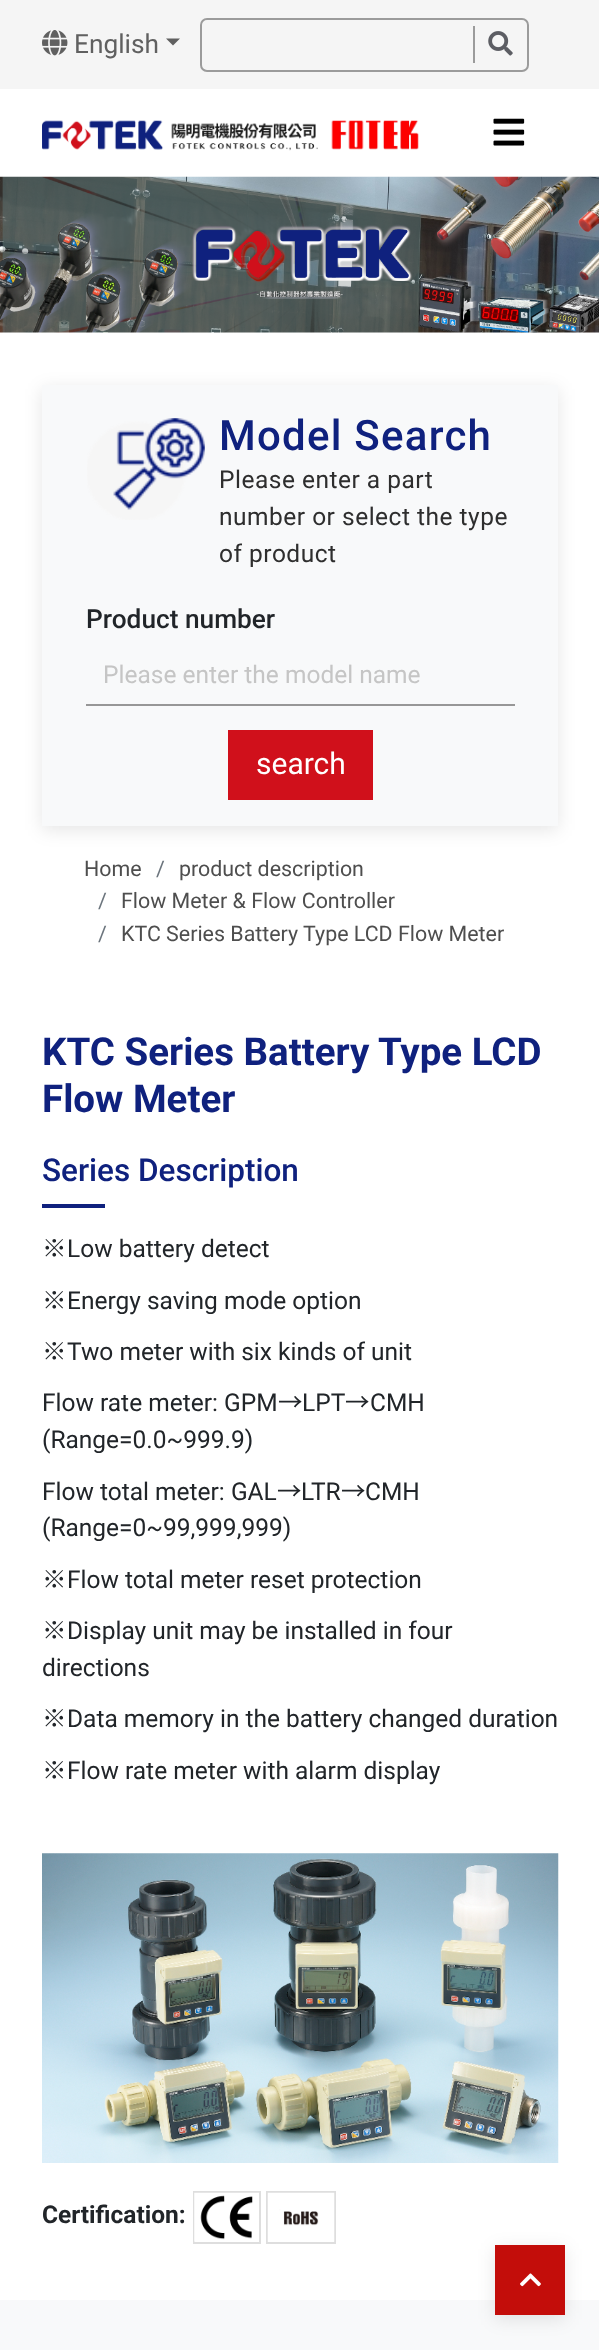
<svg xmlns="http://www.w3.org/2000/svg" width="599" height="2350">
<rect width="100%" height="100%" fill="#fff"/>
<rect width="599" height="89" fill="#f5f5f5"/>
<image x="42" y="30" width="26" height="26" href="media/1.png"/>
<text x="74" y="53" style="font-family:Roboto;font-size:26.25px;fill:#606060">English</text>
<path d="M166 38.5h14l-7 7z" fill="#606060"/>
<rect x="201" y="19" width="327" height="52" rx="6" fill="none" stroke="#9b9b9b" stroke-width="2"/>
<rect x="473" y="26" width="2" height="37" fill="#9b9b9b"/>
<image x="488" y="31" width="25" height="25" href="media/2.png"/>
<image x="42" y="120" width="377" height="31" href="media/3.png"/>
<image x="493" y="118" width="32" height="28" href="media/4.png"/>
<image x="0" y="176" width="599" height="157" href="media/5.png"/>
<rect x="42" y="389" width="516" height="441" fill="#0000001a" filter="blur(9px)"/>
<rect x="42" y="385" width="516" height="441" fill="#f8f9fa"/>
<image x="87" y="418" width="118" height="102" href="media/6.png"/>
<text x="219" y="450" style="font-family:Roboto;font-size:42px;font-weight:500;letter-spacing:1.25px;fill:#0f217e">Model Search</text>
<text x="219" y="488" style="font-family:Roboto;font-size:24.5px;letter-spacing:0.5px;fill:#2e2e2e">Please enter a part</text>
<text x="219" y="525" style="font-family:Roboto;font-size:24.5px;letter-spacing:0.5px;fill:#2e2e2e">number or select the type</text>
<text x="219" y="562" style="font-family:Roboto;font-size:24.5px;letter-spacing:0.5px;fill:#2e2e2e">of product</text>
<text x="86" y="628" style="font-family:Roboto;font-size:26.25px;font-weight:500;fill:#212529">Product number</text>
<rect x="86" y="704" width="429" height="2" fill="#979797"/>
<text x="103" y="683" style="font-family:Roboto;font-size:24.5px;fill:#c5c5c5">Please enter the model name</text>
<rect x="228" y="730" width="145" height="70" fill="#d0101b"/>
<text x="256" y="774" style="font-family:Roboto;font-size:30px;fill:#fff">search</text>
<text x="84" y="876" style="font-family:Roboto;font-size:21.4px;fill:#4e4e4e">Home</text>
<text x="156" y="876" style="font-family:Roboto;font-size:21.4px;fill:#6c757d">/</text>
<text x="179" y="876" style="font-family:Roboto;font-size:21.4px;fill:#4e4e4e">product description</text>
<text x="98" y="908" style="font-family:Roboto;font-size:21.4px;fill:#6c757d">/</text>
<text x="121" y="908" style="font-family:Roboto;font-size:21.4px;fill:#4e4e4e">Flow Meter &amp; Flow Controller</text>
<text x="98" y="941" style="font-family:Roboto;font-size:21.4px;fill:#6c757d">/</text>
<text x="121" y="941" style="font-family:Roboto;font-size:21.4px;fill:#4e4e4e">KTC Series Battery Type LCD Flow Meter</text>
<text x="42" y="1065" style="font-family:Roboto;font-size:38.5px;font-weight:bold;fill:#0f217e">KTC Series Battery Type LCD</text>
<text x="42" y="1112" style="font-family:Roboto;font-size:38.5px;font-weight:bold;fill:#0f217e">Flow Meter</text>
<text x="42" y="1181" style="font-family:Roboto;font-size:31.5px;font-weight:500;fill:#0f217e">Series Description</text>
<rect x="42" y="1204" width="63" height="4" fill="#0f217e"/>
<text x="42" y="1257" style="font-family:Noto Sans SC;font-size:24.5px;fill:#212529">※</text>
<text x="67" y="1257" style="font-family:Roboto;font-size:24.5px;fill:#212529">Low battery detect</text>
<text x="42" y="1309" style="font-family:Noto Sans SC;font-size:24.5px;fill:#212529">※</text>
<text x="67" y="1309" style="font-family:Roboto;font-size:24.5px;fill:#212529">Energy saving mode option</text>
<text x="42" y="1360" style="font-family:Noto Sans SC;font-size:24.5px;fill:#212529">※</text>
<text x="67" y="1360" style="font-family:Roboto;font-size:24.5px;fill:#212529">Two meter with six kinds of unit</text>
<text x="42" y="1411" style="font-family:Roboto;font-size:24.5px;fill:#212529">Flow rate meter: GPM</text>
<text x="278" y="1411" style="font-family:Noto Sans SC;font-size:24.5px;fill:#212529">→</text>
<text x="302" y="1411" style="font-family:Roboto;font-size:24.5px;fill:#212529">LPT</text>
<text x="345" y="1411" style="font-family:Noto Sans SC;font-size:24.5px;fill:#212529">→</text>
<text x="370" y="1411" style="font-family:Roboto;font-size:24.5px;fill:#212529">CMH</text>
<text x="42" y="1448" style="font-family:Roboto;font-size:24.5px;fill:#212529">(Range=0.0~999.9)</text>
<text x="42" y="1500" style="font-family:Roboto;font-size:24.5px;fill:#212529">Flow total meter: GAL</text>
<text x="277" y="1500" style="font-family:Noto Sans SC;font-size:24.5px;fill:#212529">→</text>
<text x="301" y="1500" style="font-family:Roboto;font-size:24.5px;fill:#212529">LTR</text>
<text x="341" y="1500" style="font-family:Noto Sans SC;font-size:24.5px;fill:#212529">→</text>
<text x="365" y="1500" style="font-family:Roboto;font-size:24.5px;fill:#212529">CMH</text>
<text x="42" y="1536" style="font-family:Roboto;font-size:24.5px;fill:#212529">(Range=0~99,999,999)</text>
<text x="42" y="1588" style="font-family:Noto Sans SC;font-size:24.5px;fill:#212529">※</text>
<text x="67" y="1588" style="font-family:Roboto;font-size:24.5px;fill:#212529">Flow total meter reset protection</text>
<text x="42" y="1639" style="font-family:Noto Sans SC;font-size:24.5px;fill:#212529">※</text>
<text x="67" y="1639" style="font-family:Roboto;font-size:24.5px;fill:#212529">Display unit may be installed in four</text>
<text x="42" y="1676" style="font-family:Roboto;font-size:24.5px;fill:#212529">directions</text>
<text x="42" y="1727" style="font-family:Noto Sans SC;font-size:24.5px;fill:#212529">※</text>
<text x="67" y="1727" style="font-family:Roboto;font-size:24.5px;fill:#212529">Data memory in the battery changed duration</text>
<text x="42" y="1779" style="font-family:Noto Sans SC;font-size:24.5px;fill:#212529">※</text>
<text x="67" y="1779" style="font-family:Roboto;font-size:24.5px;fill:#212529">Flow rate meter with alarm display</text>
<image x="42" y="1853" width="517" height="310" href="media/7.png"/>
<rect x="194" y="2192" width="66" height="51" fill="none" stroke="#dedede" stroke-width="2"/>
<rect x="267" y="2192" width="68" height="51" fill="none" stroke="#dedede" stroke-width="2"/>
<text x="42" y="2223" style="font-family:Roboto;font-size:24.5px;font-weight:bold;fill:#212529">Certification:</text>
<image x="194" y="2192" width="65" height="50" href="media/8.png"/>
<image x="267" y="2192" width="68" height="50" href="media/9.png"/>
<rect y="2300" width="599" height="50" fill="#f8f9fa"/>
<rect x="495" y="2249" width="70" height="70" fill="#0000001a" filter="blur(9px)"/>
<rect x="495" y="2245" width="70" height="70" fill="#c30d0a"/>
<image x="520" y="2273" width="21" height="14" href="media/10.png"/>
</svg>
